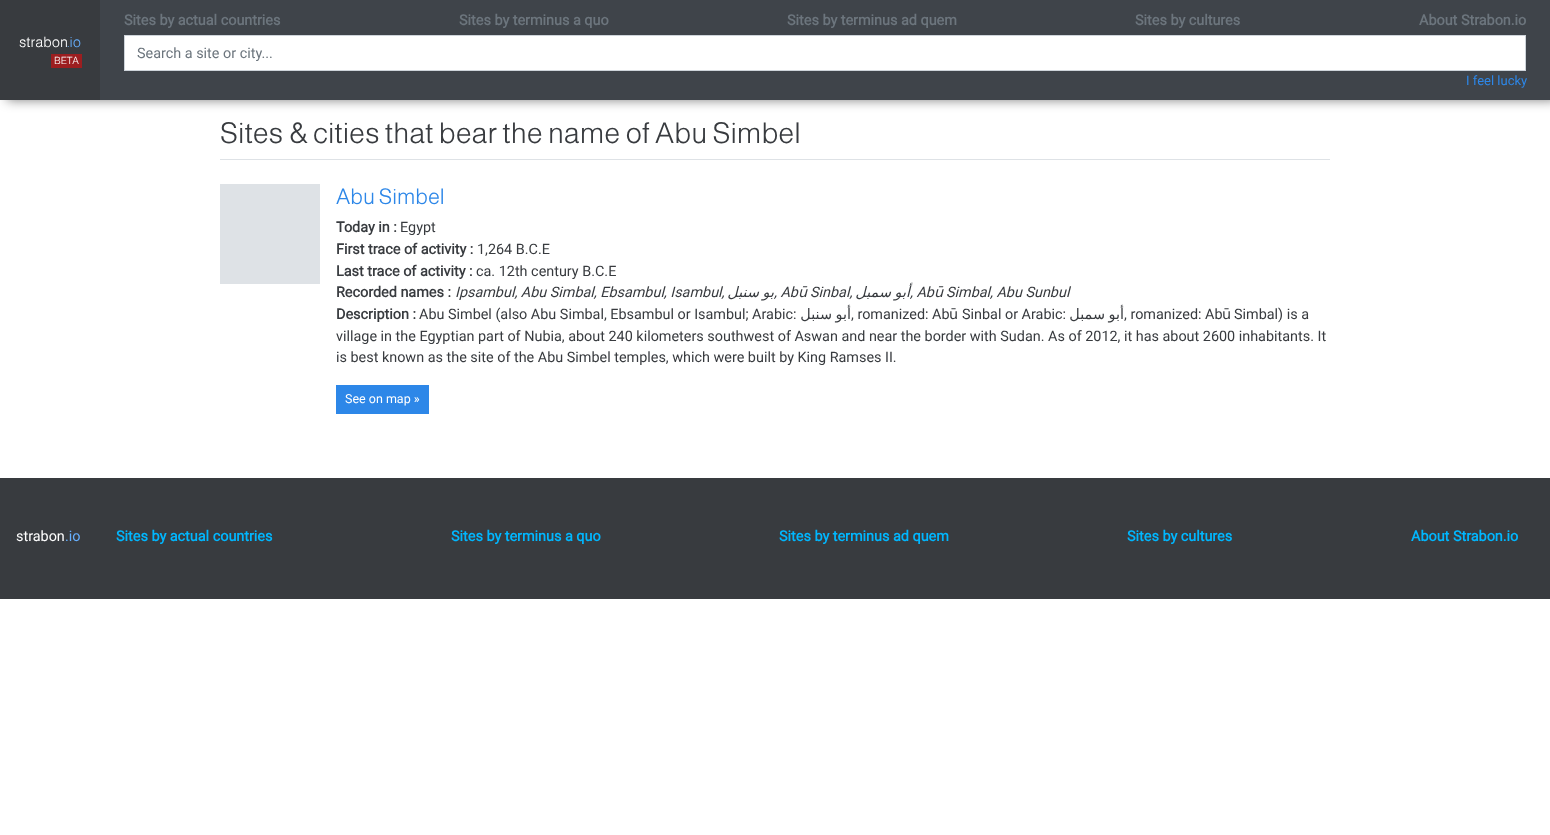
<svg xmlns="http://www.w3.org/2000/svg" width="1550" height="835">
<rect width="100%" height="100%" fill="#fff"/>
<rect x="7" width="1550" height="100" fill="#00000080" filter="blur(6px)"/>
<rect x="100" width="1450" height="100" fill="#3f444a"/>
<rect width="100" height="100" fill="#383b3f"/>
<text x="19" y="47" style="font-family:Almarai;font-size:14.4px;font-weight:300;fill:#fff">strabon</text>
<text x="67" y="47" style="font-family:Almarai;font-size:14.4px;font-weight:300;fill:#67b0ff">.io</text>
<rect x="51" y="54" width="31" height="14" fill="#9c1e20"/>
<text x="54" y="64" style="font-family:Almarai;font-size:10px;font-weight:300;fill:#fff">BETA</text>
<text x="124" y="25" style="font-family:Roboto;font-size:14.4px;font-weight:bold;fill:#6c757d">Sites by actual countries</text>
<text x="459" y="25" style="font-family:Roboto;font-size:14.4px;font-weight:bold;fill:#6c757d">Sites by terminus a quo</text>
<text x="787" y="25" style="font-family:Roboto;font-size:14.4px;font-weight:bold;fill:#6c757d">Sites by terminus ad quem</text>
<text x="1135" y="25" style="font-family:Roboto;font-size:14.4px;font-weight:bold;fill:#6c757d">Sites by cultures</text>
<text x="1419" y="25" style="font-family:Roboto;font-size:14.4px;font-weight:bold;fill:#6c757d">About Strabon.io</text>
<rect x="124.5" y="35.5" width="1401" height="35" fill="#fff" stroke="#ced4da"/>
<text x="137" y="58" style="font-family:Roboto;font-size:14.4px;fill:#6c757d">Search a site or city...</text>
<text x="1466" y="85" style="font-family:Roboto;font-size:13px;fill:#2d87e8">I feel lucky</text>
<text x="220" y="143" style="font-family:Almarai;font-size:28.8px;font-weight:300;fill:#383b3f">Sites &amp; cities that bear the name of Abu Simbel</text>
<rect x="220" y="159" width="1110" height="1" fill="#dee2e6"/>
<rect x="220" y="184" width="100" height="100" fill="#dee2e6"/>
<text x="336" y="204" style="font-family:Almarai;font-size:21.5px;font-weight:300;fill:#2d87e8">Abu Simbel</text>
<text x="336" y="232" style="font-family:Roboto;font-size:14.4px;font-weight:bold;fill:#383b3f">Today in :</text>
<text x="400" y="232" style="font-family:Roboto;font-size:14.4px;fill:#383b3f">Egypt</text>
<text x="336" y="254" style="font-family:Roboto;font-size:14.4px;font-weight:bold;fill:#383b3f">First trace of activity :</text>
<text x="477" y="254" style="font-family:Roboto;font-size:14.4px;fill:#383b3f">1,264 B.C.E</text>
<text x="336" y="276" style="font-family:Roboto;font-size:14.4px;font-weight:bold;fill:#383b3f">Last trace of activity :</text>
<text x="476" y="276" style="font-family:Roboto;font-size:14.4px;fill:#383b3f">ca. 12th century B.C.E</text>
<text x="336" y="297" style="font-family:Roboto;font-size:14.4px;font-weight:bold;fill:#383b3f">Recorded names :</text>
<text x="455" y="297" style="font-family:Roboto;font-size:14.4px;font-style:italic;fill:#383b3f">Ipsambul, Abu Simbal, Ebsambul, Isambul,</text>
<text x="774" y="297" word-spacing="-1" style="font-family:DejaVu Sans;font-size:14.4px;font-style:italic;direction:rtl;fill:#383b3f">بو سنبل</text>
<text x="774" y="297" style="font-family:Roboto;font-size:14.4px;font-style:italic;fill:#383b3f">, Ab</text>
<text x="798" y="297" style="font-family:DejaVu Sans;font-size:14.4px;font-style:italic;fill:#383b3f">ū</text>
<text x="810" y="297" style="font-family:Roboto;font-size:14.4px;font-style:italic;fill:#383b3f">Sinbal,</text>
<text x="910" y="297" word-spacing="-1" style="font-family:DejaVu Sans;font-size:14.4px;font-style:italic;direction:rtl;fill:#383b3f">أبو سمبل</text>
<text x="910" y="297" style="font-family:Roboto;font-size:14.4px;font-style:italic;fill:#383b3f">, Ab</text>
<text x="934" y="297" style="font-family:DejaVu Sans;font-size:14.4px;font-style:italic;fill:#383b3f">ū</text>
<text x="946" y="297" style="font-family:Roboto;font-size:14.4px;font-style:italic;fill:#383b3f">Simbal, Abu Sunbul</text>
<text x="336" y="319" style="font-family:Roboto;font-size:14.4px;font-weight:bold;fill:#383b3f">Description :</text>
<text x="419" y="319" style="font-family:Roboto;font-size:14.4px;fill:#383b3f">Abu Simbel (also Abu Simbal, Ebsambul or Isambul; Arabic:</text>
<text x="851" y="319" word-spacing="-1" style="font-family:DejaVu Sans;font-size:14.4px;direction:rtl;fill:#383b3f">أبو سنبل</text>
<text x="851" y="319" style="font-family:Roboto;font-size:14.4px;fill:#383b3f">, romanized: Ab</text>
<text x="949" y="319" style="font-family:DejaVu Sans;font-size:14.4px;fill:#383b3f">ū</text>
<text x="962" y="319" style="font-family:Roboto;font-size:14.4px;fill:#383b3f">Sinbal or Arabic:</text>
<text x="1124" y="319" word-spacing="-1" style="font-family:DejaVu Sans;font-size:14.4px;direction:rtl;fill:#383b3f">أبو سمبل</text>
<text x="1124" y="319" style="font-family:Roboto;font-size:14.4px;fill:#383b3f">, romanized: Ab</text>
<text x="1222" y="319" style="font-family:DejaVu Sans;font-size:14.4px;fill:#383b3f">ū</text>
<text x="1234" y="319" style="font-family:Roboto;font-size:14.4px;fill:#383b3f">Simbal) is a</text>
<text x="336" y="341" style="font-family:Roboto;font-size:14.4px;fill:#383b3f">village in the Egyptian part of Nubia, about 240 kilometers southwest of Aswan and near the border with Sudan. As of 2012, it has about 2600 inhabitants. It</text>
<text x="336" y="362" style="font-family:Roboto;font-size:14.4px;fill:#383b3f">is best known as the site of the Abu Simbel temples, which were built by King Ramses II.</text>
<rect x="336" y="385" width="93" height="29" fill="#2d87e8"/>
<text x="345" y="403" style="font-family:Roboto;font-size:12.5px;fill:#fff">See on map »</text>
<rect y="478" width="1550" height="121" fill="#383b3f"/>
<text x="16" y="541" style="font-family:Roboto;font-size:14.4px;fill:#fff">strabon</text>
<text x="65" y="541" style="font-family:Roboto;font-size:14.4px;fill:#67b0ff">.io</text>
<text x="116" y="541" style="font-family:Roboto;font-size:14.4px;font-weight:bold;fill:#00b7ff">Sites by actual countries</text>
<text x="451" y="541" style="font-family:Roboto;font-size:14.4px;font-weight:bold;fill:#00b7ff">Sites by terminus a quo</text>
<text x="779" y="541" style="font-family:Roboto;font-size:14.4px;font-weight:bold;fill:#00b7ff">Sites by terminus ad quem</text>
<text x="1127" y="541" style="font-family:Roboto;font-size:14.4px;font-weight:bold;fill:#00b7ff">Sites by cultures</text>
<text x="1411" y="541" style="font-family:Roboto;font-size:14.4px;font-weight:bold;fill:#00b7ff">About Strabon.io</text>
</svg>
